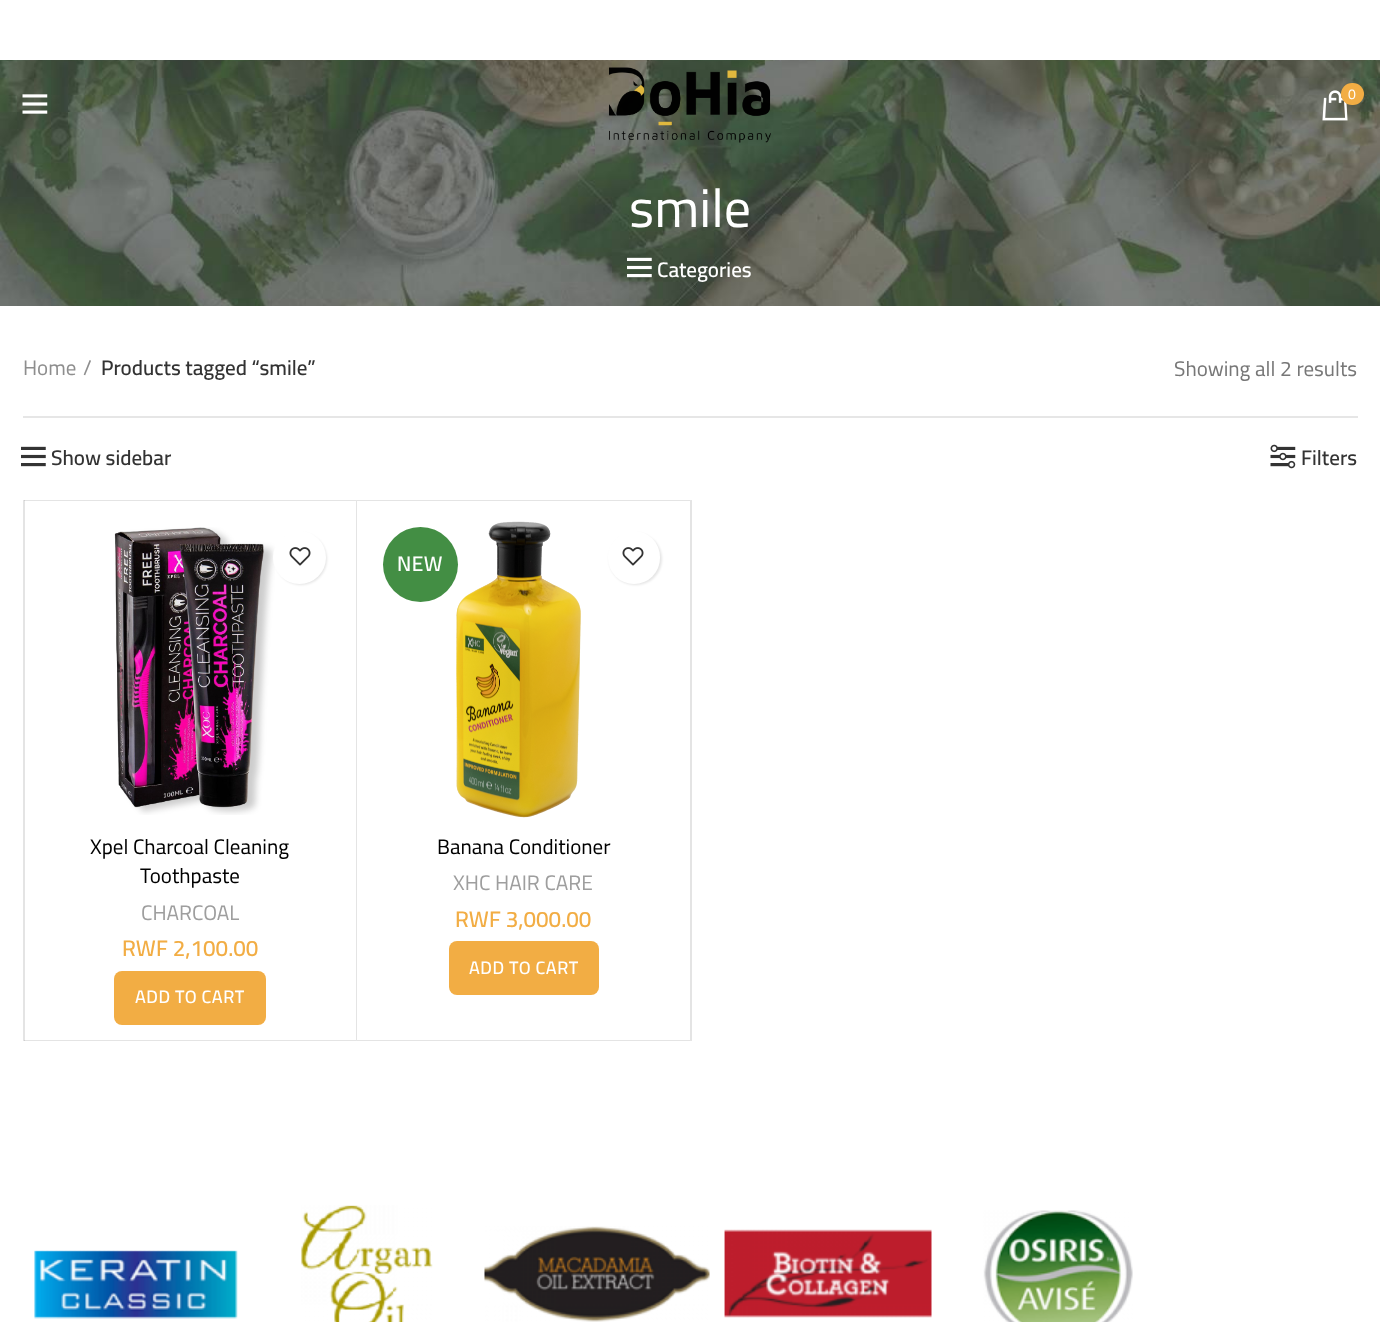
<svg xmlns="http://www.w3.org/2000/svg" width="1380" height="1322">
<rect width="100%" height="100%" fill="#fff"/>
<image x="0" y="60" width="1380" height="246" href="media/4.png"/>
<image x="22" y="94" width="26" height="20" href="media/1.png"/>
<image x="609" y="67" width="162" height="76" href="media/2.png"/>
<image x="1322" y="90" width="26" height="31" href="media/3.png"/>
<rect x="1341" y="83" width="23" height="22" rx="11" fill="#f2ad44"/>
<text x="1348" y="99" style="font-family:Cairo;font-size:14px;fill:#fff">0</text>
<text x="629" y="227" style="font-family:Cairo;font-size:54px;fill:#fff">smile</text>
<image x="627" y="257" width="25" height="21" href="media/5.png"/>
<text x="657" y="277" style="font-family:Cairo;font-size:21px;font-weight:600;fill:#fff">Categories</text>
<rect x="23" y="416" width="1335" height="2" fill="#e6e6e6"/>
<text x="23" y="375" style="font-family:Cairo;font-size:21px;fill:#8e8e8e">Home</text>
<text x="83" y="375" style="font-family:Cairo;font-size:21px;fill:#8e8e8e">/</text>
<text x="101" y="375" style="font-family:Cairo;font-size:21px;font-weight:600;fill:#333">Products tagged “smile”</text>
<text x="1174" y="376" style="font-family:Cairo;font-size:21px;fill:#777">Showing all 2 results</text>
<image x="21" y="446" width="25" height="21" href="media/6.png"/>
<text x="51" y="465" style="font-family:Cairo;font-size:21px;font-weight:600;fill:#333">Show sidebar</text>
<image x="1270" y="444" width="26" height="25" href="media/7.png"/>
<text x="1301" y="465" style="font-family:Cairo;font-size:21px;font-weight:600;fill:#333">Filters</text>
<rect x="23" y="500" width="2" height="541" fill="#e4e4e4"/>
<path d="M24 500h333l-1 1h-332z" fill="#77777733"/>
<path d="M357 500v541l-1-1v-539z" fill="#77777733"/>
<path d="M357 1041h-333v-1h332z" fill="#77777733"/>
<image x="114" y="527" width="161" height="288" href="media/8.png"/>
<rect x="275" y="533" width="52" height="52" rx="26" fill="#0000001a" filter="blur(1px)"/>
<circle cx="299.5" cy="557.5" r="26.5" fill="#fff"/>
<image x="289" y="547" width="22" height="19" href="media/9.png"/>
<text x="90" y="854" style="font-family:Cairo;font-size:21px;fill:#000">Xpel Charcoal Cleaning</text>
<text x="140" y="883" style="font-family:Cairo;font-size:21px;fill:#000">Toothpaste</text>
<text x="141" y="920" style="font-family:Cairo;font-size:21px;fill:#9e9e9e">CHARCOAL</text>
<text x="122" y="956" style="font-family:Cairo;font-size:22.5px;font-weight:600;fill:#f2ad44">RWF 2,100.00</text>
<rect x="114" y="971" width="152" height="54" rx="8" fill="#f2ad44"/>
<text x="135" y="1003" style="font-family:Cairo;font-size:18px;font-weight:600;letter-spacing:0.5px;fill:#fff">ADD TO CART</text>
<path d="M357 500h335l-2 1h-333z" fill="#e4e4e4"/>
<path d="M692 500v541l-2-1v-539z" fill="#77777733"/>
<path d="M692 1041h-335v-1h333z" fill="#77777733"/>
<image x="456" y="521" width="125" height="297" href="media/10.png"/>
<circle cx="420.5" cy="564.5" r="37.5" fill="#438e44"/>
<text x="397" y="571" style="font-family:Cairo;font-size:21px;font-weight:600;letter-spacing:0.5px;fill:#fff">NEW</text>
<rect x="609" y="533" width="53" height="52" rx="26" fill="#0000001a" filter="blur(1px)"/>
<rect x="608" y="531" width="52" height="53" rx="26" fill="#fff"/>
<image x="622" y="547" width="22" height="19" href="media/9.png"/>
<text x="437" y="854" style="font-family:Cairo;font-size:21px;fill:#000">Banana Conditioner</text>
<text x="453" y="890" style="font-family:Cairo;font-size:21px;fill:#9e9e9e">XHC HAIR CARE</text>
<text x="455" y="927" style="font-family:Cairo;font-size:22.5px;font-weight:600;fill:#f2ad44">RWF 3,000.00</text>
<rect x="449" y="941" width="150" height="54" rx="8" fill="#f2ad44"/>
<text x="469" y="974" style="font-family:Cairo;font-size:18px;font-weight:600;letter-spacing:0.5px;fill:#fff">ADD TO CART</text>
<image x="34" y="1250" width="204" height="69" href="media/11.png"/>
<image x="301" y="1205" width="132" height="117" href="media/12.png"/>
<image x="484" y="1226" width="226" height="96" href="media/13.png"/>
<image x="724" y="1229" width="208" height="89" href="media/14.png"/>
<image x="983" y="1210" width="150" height="112" href="media/15.png"/>
</svg>
